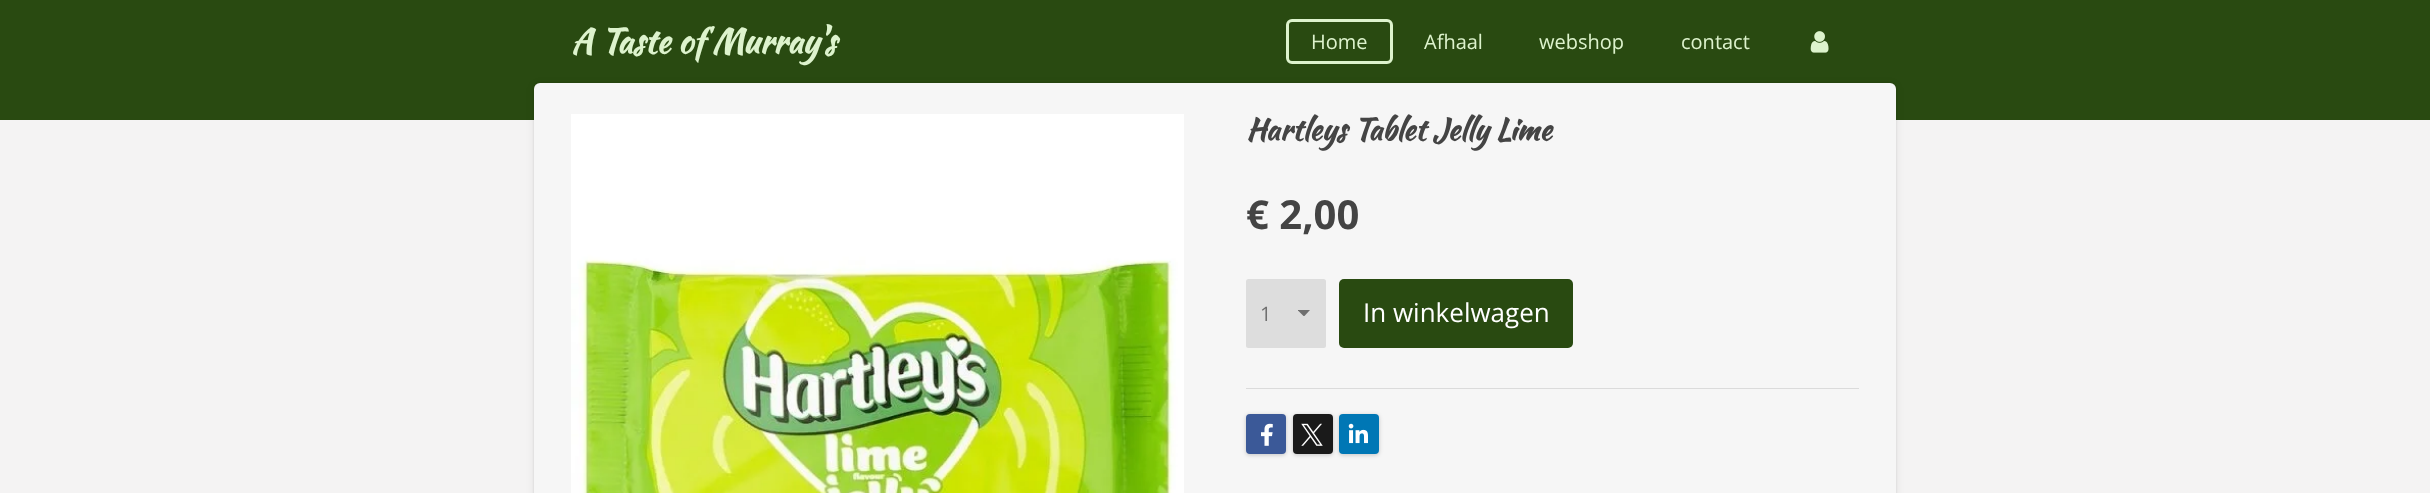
<svg xmlns="http://www.w3.org/2000/svg" width="2430" height="493">
<defs>
<clipPath id="clip1"><rect x="1298" y="310" width="13" height="6"/></clipPath>
</defs>
<rect width="100%" height="100%" fill="#f4f3f3"/>
<rect width="2430" height="120" fill="#294a11"/>
<text x="571" y="53" style="font-family:Kaushan Script;font-size:33.75px;font-weight:bold;fill:#ddf3cd">A Taste of Murray's</text>
<rect x="1287.5" y="20.5" width="104" height="42" rx="4.5" fill="none" stroke="#ddf3cd" stroke-width="3"/>
<text x="1311" y="49" style="font-family:Open Sans;font-size:20px;fill:#ddf3cd">Home</text>
<text x="1424" y="49" style="font-family:Open Sans;font-size:20px;fill:#ddf3cd">Afhaal</text>
<text x="1539" y="49" style="font-family:Open Sans;font-size:20px;fill:#ddf3cd">webshop</text>
<text x="1681" y="49" style="font-family:Open Sans;font-size:20px;fill:#ddf3cd">contact</text>
<image x="1810" y="31" width="19" height="22" href="media/1.png"/>
<rect x="534" y="83" width="1362" height="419" rx="6" fill="#0000001a" filter="blur(1px)"/>
<rect x="534" y="85" width="1362" height="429" rx="6" fill="#00000012" filter="blur(5px)"/>
<rect x="534" y="83" width="1362" height="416" rx="6" fill="#f6f6f6"/>
<image x="571" y="114" width="613" height="379" href="media/2.png"/>
<text x="1246" y="140" style="font-family:Kaushan Script;font-size:30px;font-weight:bold;fill:#444">Hartleys Tablet Jelly Lime</text>
<text x="1246" y="229" style="font-family:Open Sans;font-size:40px;font-weight:bold;fill:#444">€ 2,00</text>
<rect x="1246" y="279" width="80" height="69" rx="2.5" fill="#ddd"/>
<g clip-path="url(#clip1)">
<path d="M1304 316.5l-6.5-6.5h12.5z" fill="#6f6f6f"/>
</g>
<text x="1260" y="321" style="font-family:Open Sans;font-size:20px;fill:#6f6f6f">1</text>
<rect x="1339" y="279" width="234" height="69" rx="5" fill="#294a11"/>
<text x="1363" y="322" style="font-family:Open Sans;font-size:26px;fill:#fff">In winkelwagen</text>
<rect x="1246" y="388" width="613" height="1" fill="#dbdbdb"/>
<rect x="1246" y="415" width="40" height="40" rx="4" fill="#00000033" filter="blur(2px)"/>
<rect x="1246" y="414" width="40" height="40" rx="4" fill="#3b5998"/>
<image x="1261" y="423" width="12" height="23" href="media/3.png"/>
<rect x="1293" y="415" width="40" height="40" rx="4" fill="#00000033" filter="blur(2px)"/>
<rect x="1293" y="414" width="40" height="40" rx="4" fill="#1a1a1a"/>
<image x="1301" y="423" width="22" height="23" href="media/4.png"/>
<rect x="1339" y="415" width="40" height="40" rx="4" fill="#00000033" filter="blur(2px)"/>
<rect x="1339" y="414" width="40" height="40" rx="4" fill="#0077b5"/>
<image x="1348" y="423" width="20" height="21" href="media/5.png"/>
</svg>
